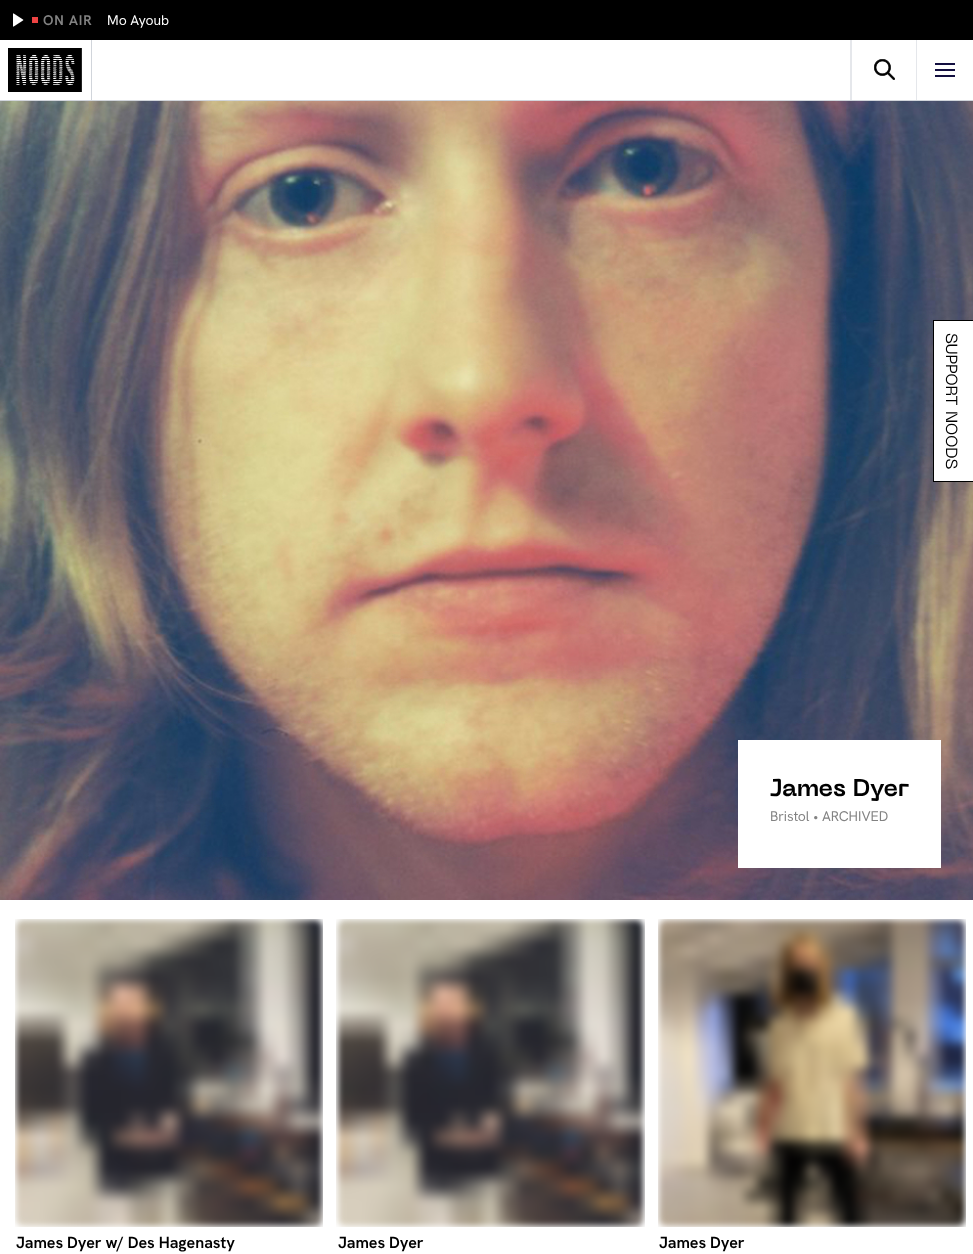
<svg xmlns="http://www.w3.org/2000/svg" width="973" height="1254">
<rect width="100%" height="100%" fill="#fff"/>
<rect y="100" width="973" height="1" fill="#d1d5db"/>
<rect width="973" height="40" fill="#000"/>
<image x="13" y="13" width="11" height="14" href="media/1.png"/>
<rect x="32" y="17" width="6" height="6" fill="#ee4343"/>
<text x="43" y="25" style="font-family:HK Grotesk;font-size:14px;font-weight:bold;letter-spacing:0.75px;fill:#828282">ON AIR</text>
<text x="107" y="25" style="font-family:HK Grotesk;font-size:14px;font-weight:500;fill:#fff">Mo Ayoub</text>
<rect x="91" y="40" width="1" height="60" fill="#d1d5db"/>
<image x="8" y="48" width="74" height="44" href="media/2.png"/>
<rect x="850" y="40" width="2" height="60" fill="#e5e7eb"/>
<image x="874" y="59" width="21" height="21" href="media/3.png"/>
<rect x="916" y="40" width="1" height="60" fill="#e5e7eb"/>
<rect x="935" y="63" width="20" height="2" fill="#130f40"/>
<rect x="935" y="69" width="20" height="2" fill="#130f40"/>
<rect x="935" y="75" width="20" height="2" fill="#130f40"/>
<image x="0" y="101" width="973" height="799" href="media/4.png"/>
<rect x="933.5" y="320.5" width="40" height="161" fill="#fff" stroke="#000"/>
<text x="946" y="333" transform="rotate(90 946 333)" style="font-family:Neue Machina;font-size:16px;fill:#000">SUPPORT NOODS</text>
<rect x="738" y="740" width="203" height="128" fill="#fff"/>
<text x="770" y="796" style="font-family:Neue Machina;font-size:24px;font-weight:bold;fill:#000">James Dyer</text>
<text x="770" y="821" style="font-family:HK Grotesk;font-size:14px;font-weight:500;fill:#828282">Bristol • ARCHIVED</text>
<image x="15" y="919" width="308" height="308" href="media/5.png"/>
<text x="16" y="1248" style="font-family:HK Grotesk;font-size:16px;font-weight:bold;fill:#000">James Dyer w/ Des Hagenasty</text>
<image x="336" y="919" width="309" height="308" href="media/6.png"/>
<text x="338" y="1248" style="font-family:HK Grotesk;font-size:16px;font-weight:bold;fill:#000">James Dyer</text>
<image x="658" y="919" width="308" height="308" href="media/7.png"/>
<text x="659" y="1248" style="font-family:HK Grotesk;font-size:16px;font-weight:bold;fill:#000">James Dyer</text>
</svg>
